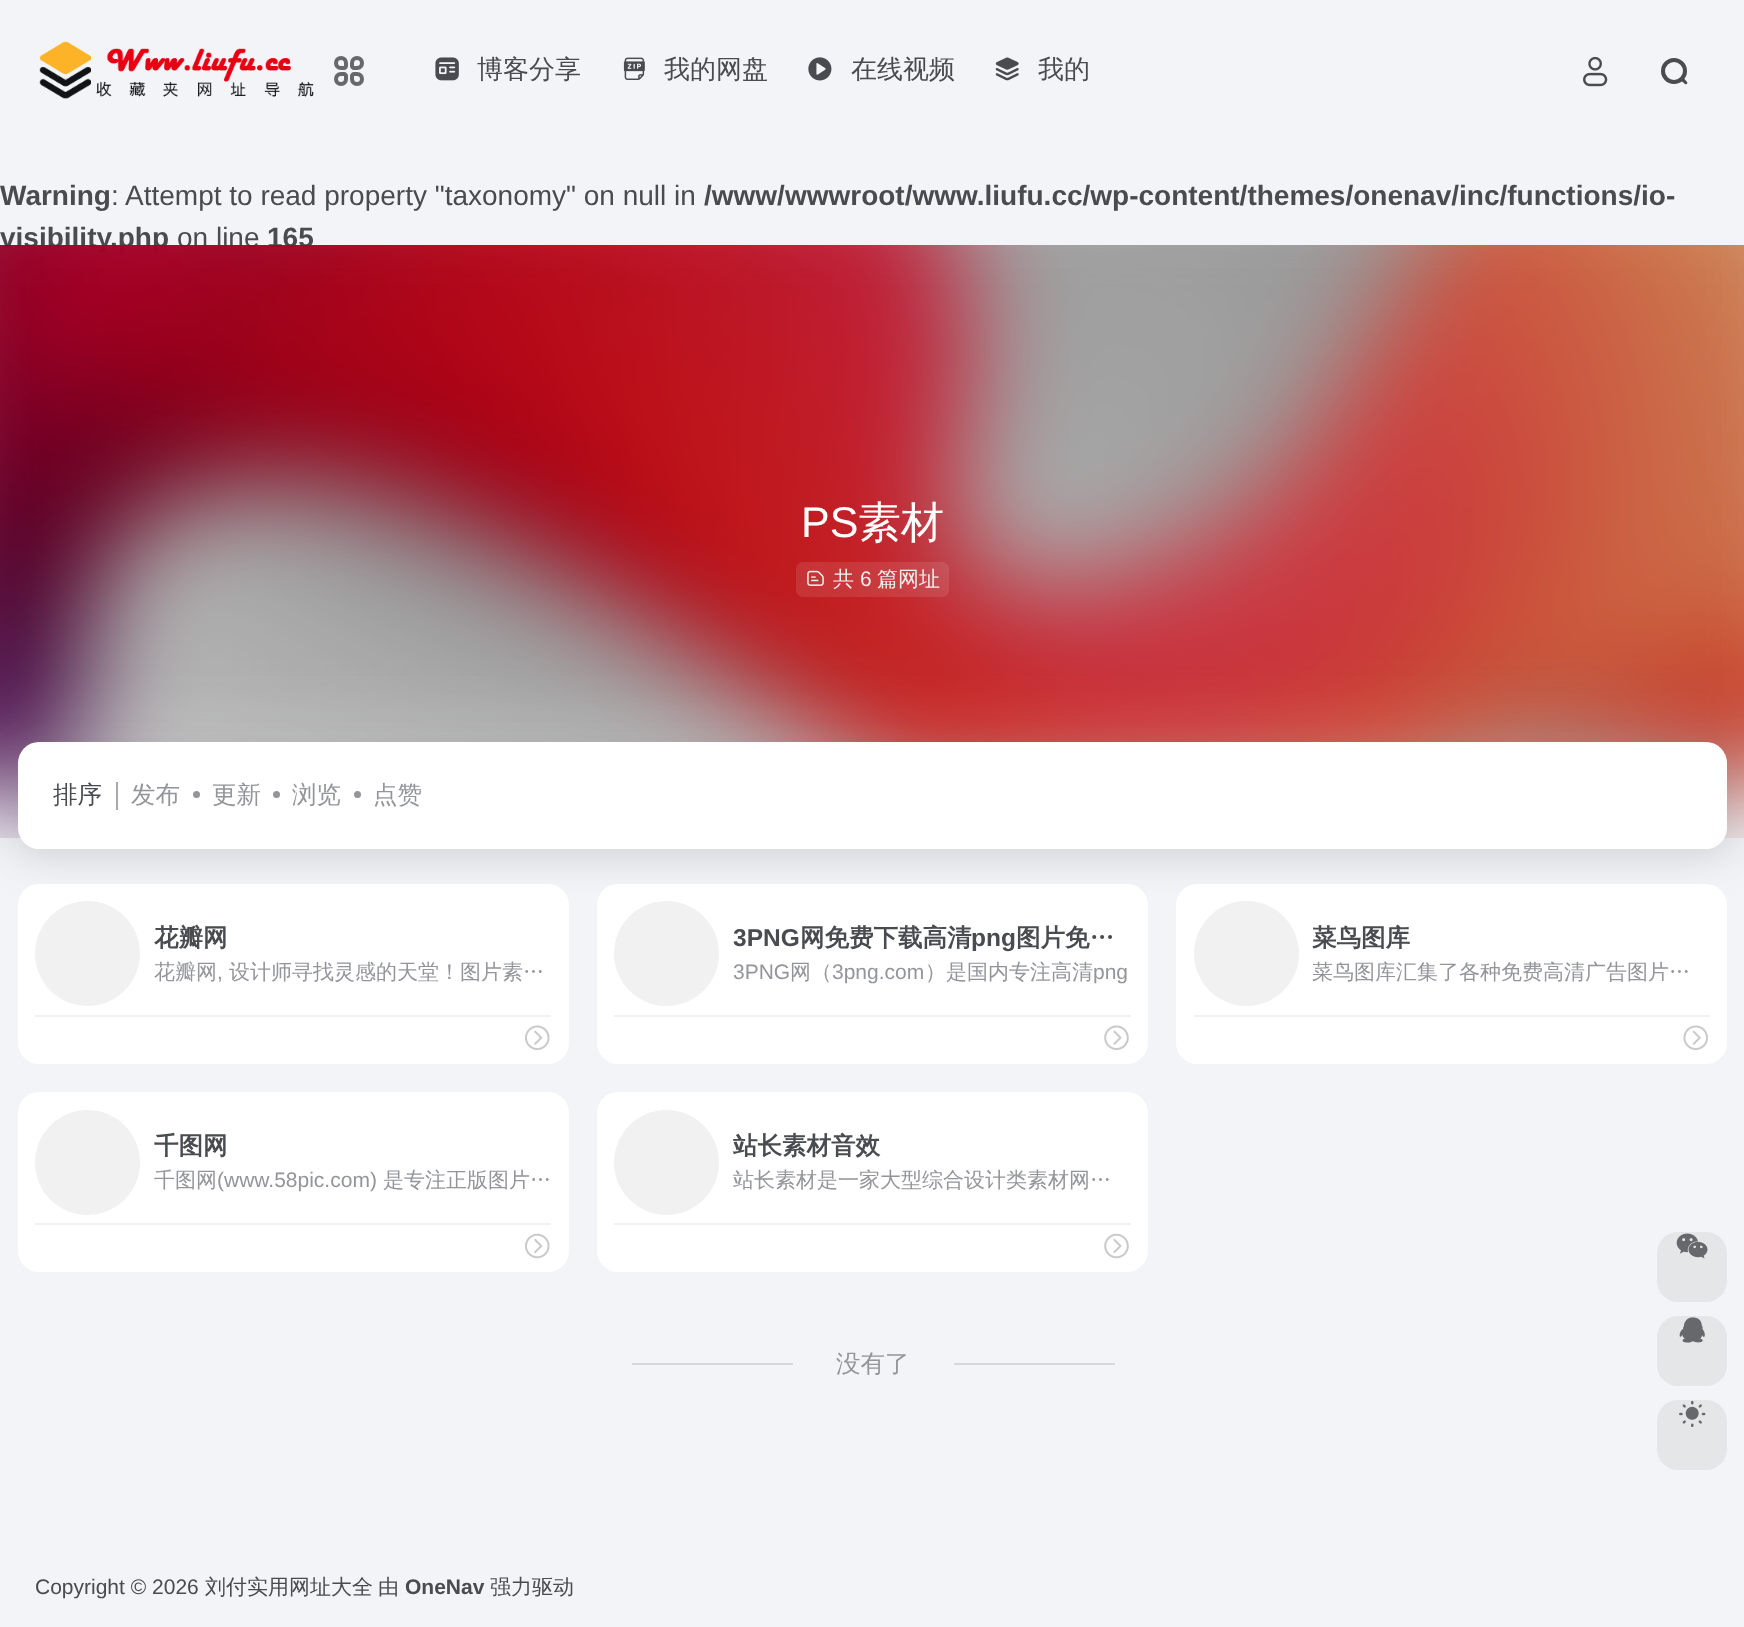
<svg xmlns="http://www.w3.org/2000/svg" width="1744" height="1627">
<defs>
<clipPath id="clip1"><rect x="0" y="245" width="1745" height="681"/></clipPath>
</defs>
<rect width="100%" height="100%" fill="#f2f4f7"/>
<text x="0" y="247" style="font-family:Liberation Sans;font-size:28px;font-weight:bold;fill:#484b4f">visibility.php</text>
<text x="177" y="247" style="font-family:Liberation Sans;font-size:28px;fill:#484b4f">on line</text>
<text x="267" y="247" style="font-family:Liberation Sans;font-size:28px;font-weight:bold;fill:#484b4f">165</text>
<image x="0" y="245" width="1744" height="593" href="media/7.png"/>
<g clip-path="url(#clip1)">
<rect x="-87" y="158" width="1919" height="628" fill="#00000033" filter="blur(52.5px)"/>
</g>
<image x="39" y="41" width="275" height="58" href="media/1.png"/>
<path d="M341 58c3 0 5 2 5 5v3c0 1-1 2-2 2h-3c-3 0-5-2-5-5c0-3 2-5 5-5z" fill="none" stroke="#66686b" stroke-width="4"/>
<path d="M357 58c3 0 5 2 5 5c0 3-2 5-5 5h-3c-1 0-2-1-2-2v-3c0-3 2-5 5-5z" fill="none" stroke="#66686b" stroke-width="4"/>
<path d="M341 74h3c1 0 2 1 2 2v3c0 3-2 5-5 5c-3 0-5-2-5-5c0-3 2-5 5-5z" fill="none" stroke="#66686b" stroke-width="4"/>
<path d="M354 74h3c3 0 5 2 5 5c0 3-2 5-5 5c-3 0-5-2-5-5v-3c0-1 1-2 2-2z" fill="none" stroke="#66686b" stroke-width="4"/>
<image x="435" y="57" width="24" height="24" href="media/2.png"/>
<text x="477" y="78" style="font-family:WenQuanYi Zen Hei;font-size:26px;font-weight:500;fill:#484b4f">博客分享</text>
<image x="623" y="57" width="22" height="23" href="media/3.png"/>
<text x="664" y="78" style="font-family:WenQuanYi Zen Hei;font-size:26px;font-weight:500;fill:#484b4f">我的网盘</text>
<image x="808" y="57" width="24" height="24" href="media/4.png"/>
<text x="851" y="78" style="font-family:WenQuanYi Zen Hei;font-size:26px;font-weight:500;fill:#484b4f">在线视频</text>
<image x="995" y="57" width="24" height="24" href="media/5.png"/>
<text x="1038" y="78" style="font-family:WenQuanYi Zen Hei;font-size:26px;font-weight:500;fill:#484b4f">我的</text>
<image x="1583" y="56" width="25" height="31" href="media/6.png"/>
<circle cx="1674" cy="71" r="11" fill="none" stroke="#484b4f" stroke-width="4"/>
<path d="M1684.5 79l2.5 3c1 1.5-.5 3-2 2l-3.5-3c-.5-2 1.5-3.5 3-2z" fill="#484b4f"/>
<text x="0" y="205" style="font-family:Liberation Sans;font-size:28px;font-weight:bold;fill:#484b4f">Warning</text>
<text x="111" y="205" style="font-family:Liberation Sans;font-size:28px;fill:#484b4f">:</text>
<text x="125" y="205" style="font-family:Liberation Sans;font-size:28px;fill:#484b4f">Attempt to read property "taxonomy" on null in</text>
<text x="704" y="205" style="font-family:Liberation Sans;font-size:28px;font-weight:bold;fill:#484b4f">/www/wwwroot/www.liufu.cc/wp-content/themes/onenav/inc/functions/io-</text>
<text x="801" y="537" style="font-family:Liberation Sans;font-size:43px;fill:#fff">PS</text>
<text x="858" y="537" style="font-family:WenQuanYi Zen Hei;font-size:43px;font-weight:500;fill:#fff">素材</text>
<rect x="796" y="562" width="153" height="35" rx="7" fill="#ffffff1a"/>
<image x="807" y="570" width="17" height="16" href="media/8.png"/>
<text x="833" y="586" style="font-family:WenQuanYi Zen Hei;font-size:21px;font-weight:500;fill:#eee">共</text>
<text x="860" y="586" style="font-family:Liberation Sans;font-size:21px;fill:#eee">6</text>
<text x="877" y="586" style="font-family:WenQuanYi Zen Hei;font-size:21px;font-weight:500;fill:#eee">篇网址</text>
<rect x="18" y="751" width="1709" height="107" rx="21" fill="#0000001a" filter="blur(17.5px)"/>
<rect x="18" y="742" width="1709" height="107" rx="21" fill="#fff"/>
<text x="53" y="803" style="font-family:WenQuanYi Zen Hei;font-size:24.5px;font-weight:500;fill:#484b4f">排序</text>
<rect x="116" y="782" width="2" height="28" fill="#a9aaae"/>
<text x="131" y="803" style="font-family:WenQuanYi Zen Hei;font-size:24.5px;font-weight:500;fill:#93959a">发布</text>
<circle cx="196.5" cy="794.5" r="3.5" fill="#93959a"/>
<text x="212" y="803" style="font-family:WenQuanYi Zen Hei;font-size:24.5px;font-weight:500;fill:#93959a">更新</text>
<circle cx="276.5" cy="794.5" r="3.5" fill="#93959a"/>
<text x="292" y="803" style="font-family:WenQuanYi Zen Hei;font-size:24.5px;font-weight:500;fill:#93959a">浏览</text>
<circle cx="357.5" cy="794.5" r="3.5" fill="#93959a"/>
<text x="373" y="803" style="font-family:WenQuanYi Zen Hei;font-size:24.5px;font-weight:500;fill:#93959a">点赞</text>
<rect x="18" y="884" width="551" height="180" rx="21" fill="#fff"/>
<circle cx="87.5" cy="953.5" r="52.5" fill="#f1f1f1"/>
<text x="154" y="946" style="font-family:WenQuanYi Zen Hei;font-size:24.5px;font-weight:bold;fill:#484b4f">花瓣网</text>
<text x="154" y="979" style="font-family:WenQuanYi Zen Hei;font-size:21px;font-weight:500;fill:#93959a">花瓣网</text>
<text x="217" y="979" style="font-family:Liberation Sans;font-size:21px;fill:#93959a">,</text>
<text x="229" y="979" style="font-family:WenQuanYi Zen Hei;font-size:21px;font-weight:500;fill:#93959a">设计师寻找灵感的天堂！图片素…</text>
<rect x="35" y="1015" width="516" height="2" fill="#f1f1f1"/>
<image x="525" y="1025" width="25" height="25" href="media/9.png"/>
<rect x="597" y="884" width="551" height="180" rx="21" fill="#fff"/>
<circle cx="666.5" cy="953.5" r="52.5" fill="#f1f1f1"/>
<text x="733" y="946" style="font-family:Liberation Sans;font-size:24.5px;font-weight:bold;fill:#484b4f">3PNG</text>
<text x="800" y="946" style="font-family:WenQuanYi Zen Hei;font-size:24.5px;font-weight:bold;fill:#484b4f">网免费下载高清</text>
<text x="971" y="946" style="font-family:Liberation Sans;font-size:24.5px;font-weight:bold;fill:#484b4f">png</text>
<text x="1016" y="946" word-spacing="-1" style="font-family:WenQuanYi Zen Hei;font-size:24.5px;font-weight:bold;fill:#484b4f">图片免…</text>
<text x="733" y="979" style="font-family:Liberation Sans;font-size:21px;fill:#93959a">3PNG</text>
<text x="790" y="979" style="font-family:WenQuanYi Zen Hei;font-size:21px;font-weight:500;fill:#93959a">网（</text>
<text x="832" y="979" style="font-family:Liberation Sans;font-size:21px;fill:#93959a">3png.com</text>
<text x="925" y="979" style="font-family:WenQuanYi Zen Hei;font-size:21px;font-weight:500;fill:#93959a">）是国内专注高清</text>
<text x="1093" y="979" style="font-family:Liberation Sans;font-size:21px;fill:#93959a">png</text>
<rect x="614" y="1015" width="517" height="2" fill="#f1f1f1"/>
<image x="1104" y="1025" width="25" height="25" href="media/10.png"/>
<rect x="1176" y="884" width="551" height="180" rx="21" fill="#fff"/>
<circle cx="1246.5" cy="953.5" r="52.5" fill="#f1f1f1"/>
<text x="1312" y="946" style="font-family:WenQuanYi Zen Hei;font-size:24.5px;font-weight:bold;fill:#484b4f">菜鸟图库</text>
<text x="1312" y="979" style="font-family:WenQuanYi Zen Hei;font-size:21px;font-weight:500;fill:#93959a">菜鸟图库汇集了各种免费高清广告图片…</text>
<rect x="1194" y="1015" width="516" height="2" fill="#f1f1f1"/>
<image x="1683" y="1025" width="25" height="25" href="media/11.png"/>
<rect x="18" y="1092" width="551" height="180" rx="21" fill="#fff"/>
<circle cx="87.5" cy="1162.5" r="52.5" fill="#f1f1f1"/>
<text x="154" y="1154" style="font-family:WenQuanYi Zen Hei;font-size:24.5px;font-weight:bold;fill:#484b4f">千图网</text>
<text x="154" y="1187" style="font-family:WenQuanYi Zen Hei;font-size:21px;font-weight:500;fill:#93959a">千图网</text>
<text x="217" y="1187" style="font-family:Liberation Sans;font-size:21px;fill:#93959a">(www.58pic.com)</text>
<text x="383" y="1187" style="font-family:WenQuanYi Zen Hei;font-size:21px;font-weight:500;fill:#93959a">是专注正版图片…</text>
<rect x="35" y="1223" width="516" height="2" fill="#f1f1f1"/>
<image x="525" y="1233" width="25" height="26" href="media/12.png"/>
<rect x="597" y="1092" width="551" height="180" rx="21" fill="#fff"/>
<circle cx="666.5" cy="1162.5" r="52.5" fill="#f1f1f1"/>
<text x="733" y="1154" style="font-family:WenQuanYi Zen Hei;font-size:24.5px;font-weight:bold;fill:#484b4f">站长素材音效</text>
<text x="733" y="1187" style="font-family:WenQuanYi Zen Hei;font-size:21px;font-weight:500;fill:#93959a">站长素材是一家大型综合设计类素材网…</text>
<rect x="614" y="1223" width="517" height="2" fill="#f1f1f1"/>
<image x="1104" y="1233" width="25" height="26" href="media/13.png"/>
<rect x="632" y="1363" width="161" height="2" fill="#d6d8db"/>
<text x="836" y="1372" style="font-family:WenQuanYi Zen Hei;font-size:24.5px;font-weight:500;fill:#93959a">没有了</text>
<rect x="954" y="1363" width="161" height="2" fill="#d6d8db"/>
<rect x="1657" y="1232" width="70" height="70" rx="21" fill="#e5e6e7"/>
<image x="1676" y="1233" width="32" height="26" href="media/14.png"/>
<rect x="1657" y="1316" width="70" height="70" rx="21" fill="#e5e6e7"/>
<image x="1679" y="1317" width="26" height="26" href="media/15.png"/>
<rect x="1657" y="1400" width="70" height="70" rx="21" fill="#e5e6e7"/>
<image x="1679" y="1400" width="27" height="27" href="media/16.png"/>
<text x="35" y="1594" style="font-family:Liberation Sans;font-size:21px;fill:#484b4f">Copyright © 2026</text>
<text x="205" y="1594" style="font-family:WenQuanYi Zen Hei;font-size:21px;font-weight:500;fill:#484b4f">刘付实用网址大全</text>
<text x="378" y="1594" style="font-family:WenQuanYi Zen Hei;font-size:21px;font-weight:500;fill:#484b4f">由</text>
<text x="405" y="1594" style="font-family:Liberation Sans;font-size:21px;font-weight:bold;fill:#484b4f">OneNav</text>
<text x="490" y="1594" style="font-family:WenQuanYi Zen Hei;font-size:21px;font-weight:500;fill:#484b4f">强力驱动</text>
</svg>
